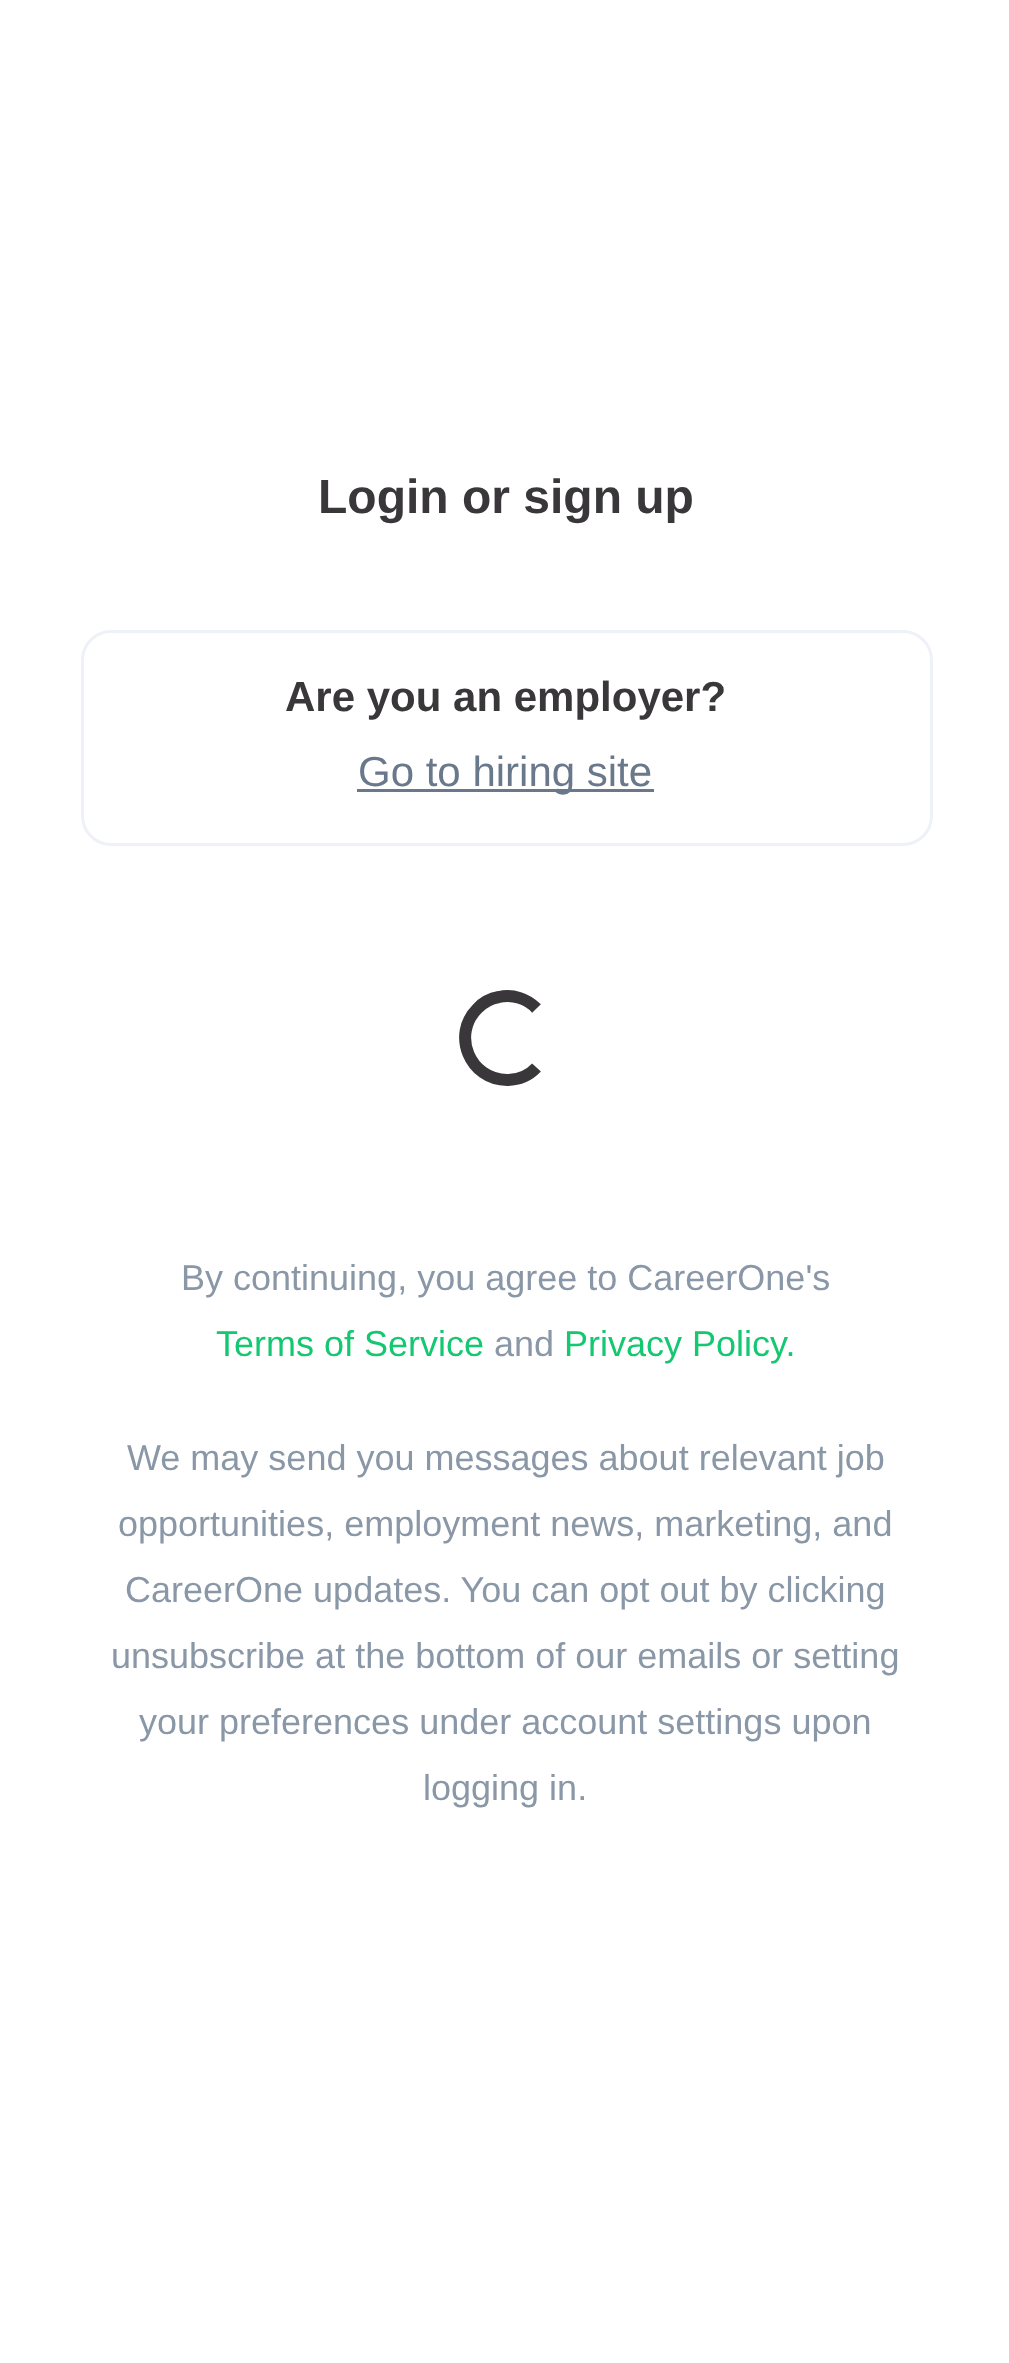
<svg xmlns="http://www.w3.org/2000/svg" width="1009" height="2363">
<rect width="100%" height="100%" fill="#fff"/>
<text x="318" y="513" style="font-family:Liberation Sans;font-size:48px;font-weight:bold;fill:#39373a">Login or sign up</text>
<rect x="82.5" y="631.5" width="849" height="213" rx="28.5" fill="none" stroke="#eef1f8" stroke-width="3"/>
<text x="285" y="711" style="font-family:Liberation Sans;font-size:42px;font-weight:bold;fill:#39373a">Are you an employer?</text>
<rect x="357" y="789" width="297" height="3" fill="#69788a"/>
<text x="358" y="786" style="font-family:Liberation Sans;font-size:42px;fill:#69788a">Go to hiring site</text>
<path d="M536.5 1067.5c-7.5 8-18.5 12.5-29.5 12.5c-37 0-56-45.5-29.5-71.5c5.5-6 13-10 21.5-11.5c13.5-3 28 1.5 37.5 11.5" fill="none" stroke="#39373a" stroke-width="12"/>
<text x="181" y="1290" style="font-family:Liberation Sans;font-size:36px;fill:#8997a7">By continuing, you agree to CareerOne's</text>
<text x="216" y="1356" style="font-family:Liberation Sans;font-size:36px;fill:#13c871">Terms of Service</text>
<text x="494" y="1356" style="font-family:Liberation Sans;font-size:36px;fill:#8997a7">and</text>
<text x="564" y="1356" style="font-family:Liberation Sans;font-size:36px;fill:#13c871">Privacy Policy.</text>
<text x="127" y="1470" style="font-family:Liberation Sans;font-size:36px;fill:#8997a7">We may send you messages about relevant job</text>
<text x="118" y="1536" style="font-family:Liberation Sans;font-size:36px;fill:#8997a7">opportunities, employment news, marketing, and</text>
<text x="125" y="1602" style="font-family:Liberation Sans;font-size:36px;fill:#8997a7">CareerOne updates. You can opt out by clicking</text>
<text x="111" y="1668" style="font-family:Liberation Sans;font-size:36px;fill:#8997a7">unsubscribe at the bottom of our emails or setting</text>
<text x="139" y="1734" style="font-family:Liberation Sans;font-size:36px;fill:#8997a7">your preferences under account settings upon</text>
<text x="423" y="1800" style="font-family:Liberation Sans;font-size:36px;fill:#8997a7">logging in.</text>
</svg>
